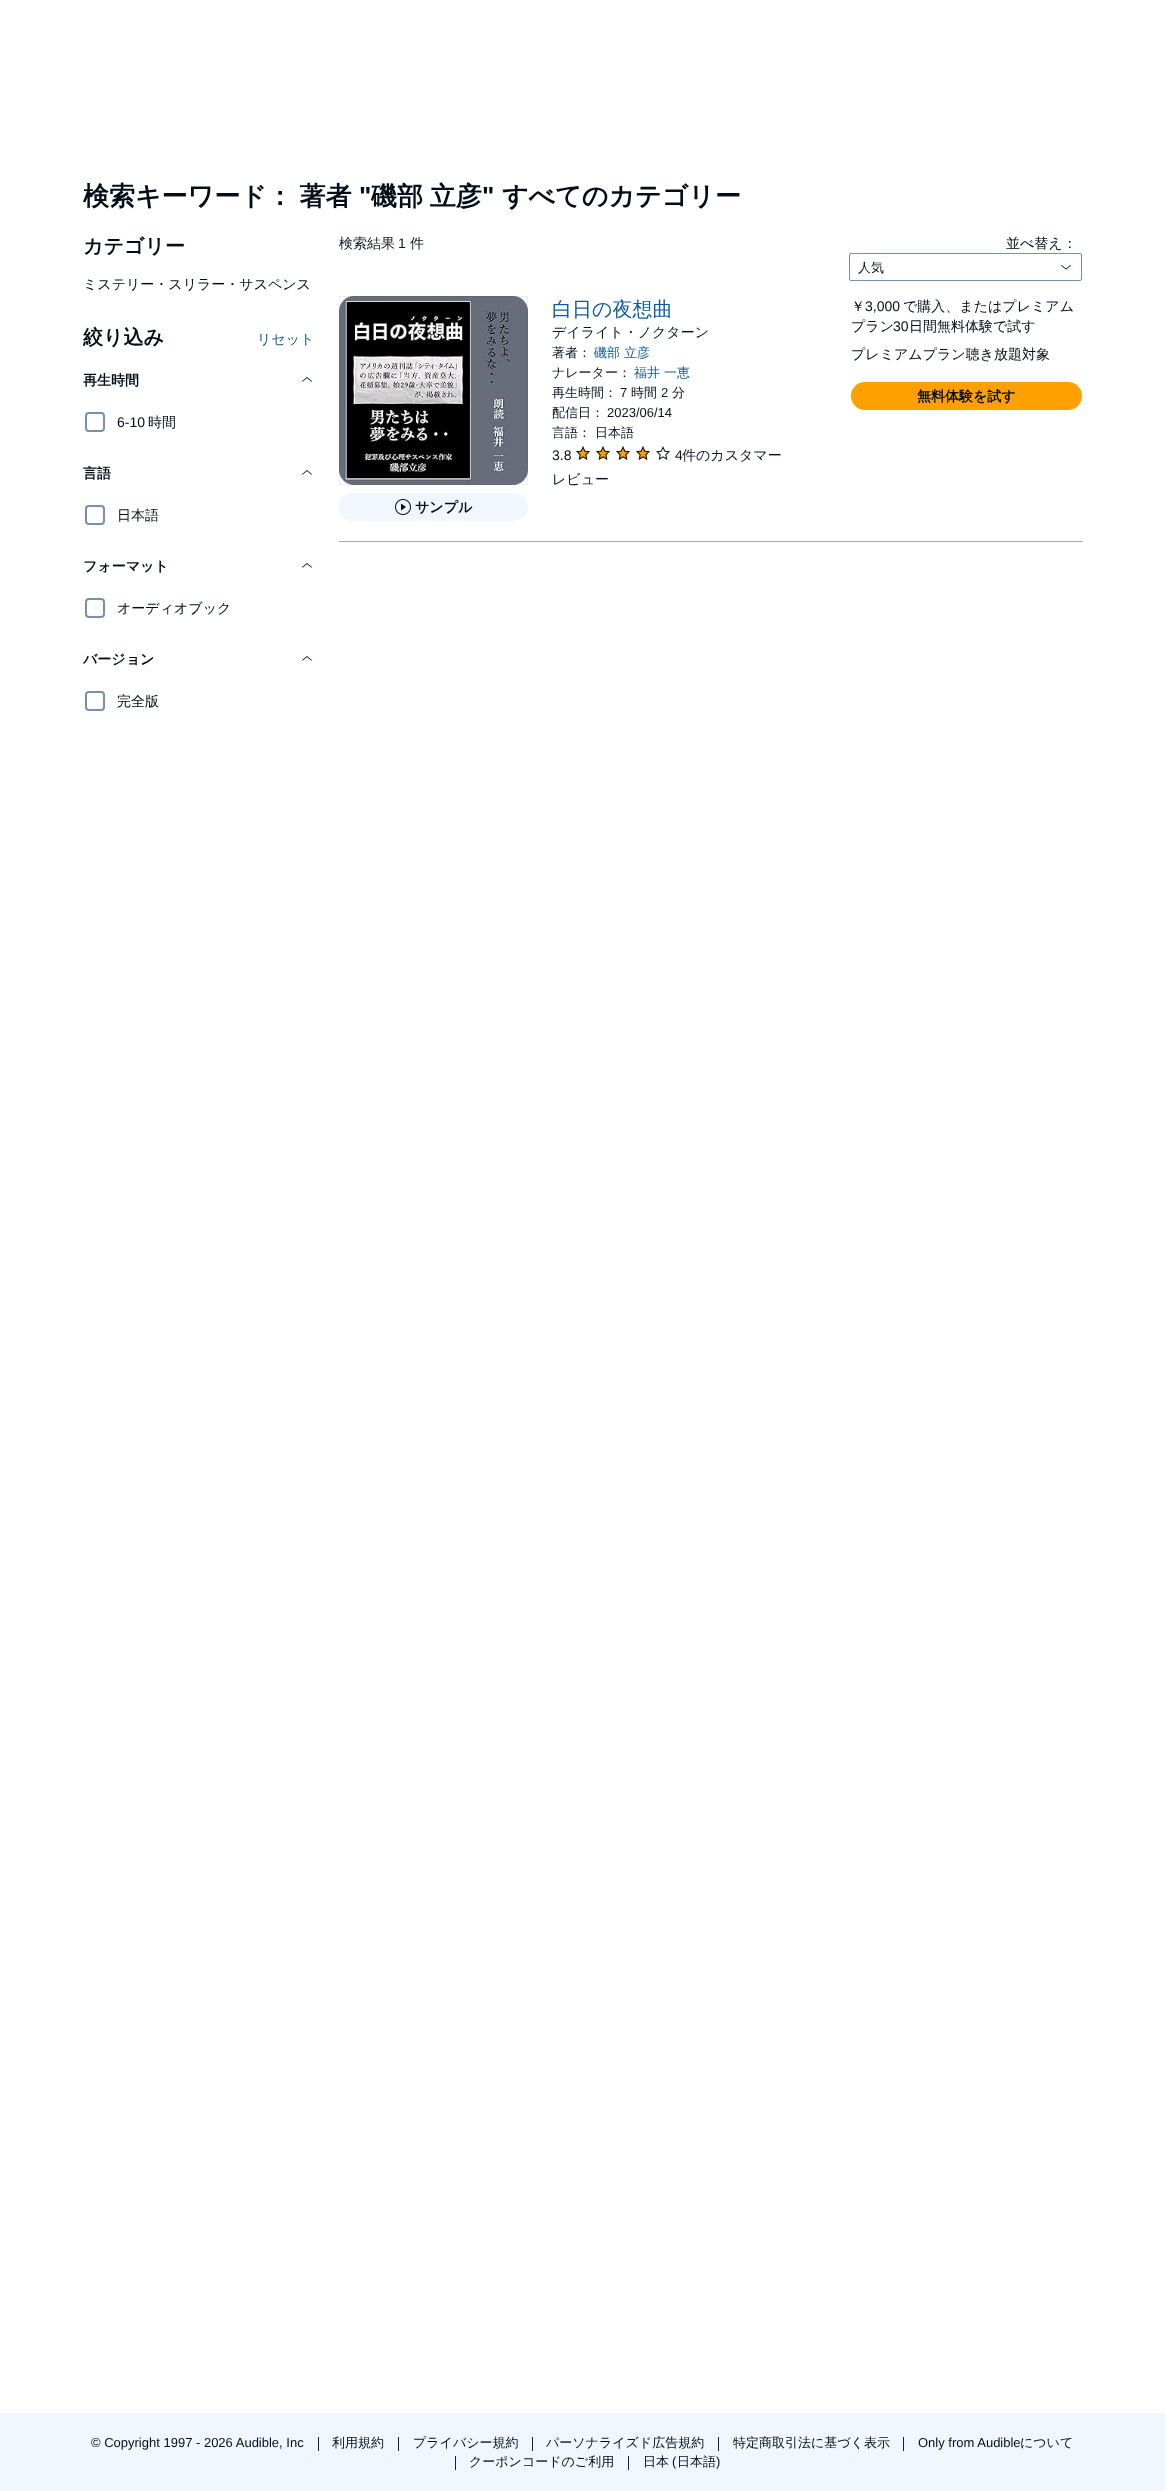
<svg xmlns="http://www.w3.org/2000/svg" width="1165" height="2491">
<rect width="100%" height="100%" fill="#fff"/>
<text x="83" y="205" word-spacing="-1" style="font-family:WenQuanYi Zen Hei;font-size:26px;font-weight:bold;fill:#010e19">検索キーワード： 著者</text>
<text x="359" y="205" style="font-family:Liberation Sans;font-size:26px;font-weight:bold;fill:#010e19">"</text>
<text x="371" y="205" word-spacing="-1" style="font-family:WenQuanYi Zen Hei;font-size:26px;font-weight:bold;fill:#010e19">磯部 立彦</text>
<text x="482" y="205" style="font-family:Liberation Sans;font-size:26px;font-weight:bold;fill:#010e19">"</text>
<text x="502" y="205" style="font-family:WenQuanYi Zen Hei;font-size:26px;font-weight:bold;fill:#010e19">すべてのカテゴリー</text>
<text x="83" y="253" style="font-family:WenQuanYi Zen Hei;font-size:20px;font-weight:bold;fill:#010e19">カテゴリー</text>
<text x="83" y="289" style="font-family:WenQuanYi Zen Hei;font-size:14px;font-weight:500;fill:#010e19">ミステリー・スリラー・サスペンス</text>
<text x="83" y="344" style="font-family:WenQuanYi Zen Hei;font-size:20px;font-weight:bold;fill:#010e19">絞り込み</text>
<text x="257" y="344" style="font-family:WenQuanYi Zen Hei;font-size:14px;font-weight:500;fill:#0e5b9b">リセット</text>
<text x="83" y="385" style="font-family:WenQuanYi Zen Hei;font-size:14px;font-weight:bold;fill:#010e19">再生時間</text>
<image x="302" y="377" width="10" height="5" href="media/1.png"/>
<rect x="86" y="413" width="18" height="18" rx="3" fill="none" stroke="#7690b2" stroke-width="2"/>
<text x="117" y="427" style="font-family:Liberation Sans;font-size:14px;fill:#010e19">6-10</text>
<text x="148" y="427" style="font-family:WenQuanYi Zen Hei;font-size:14px;font-weight:500;fill:#010e19">時間</text>
<text x="83" y="478" style="font-family:WenQuanYi Zen Hei;font-size:14px;font-weight:bold;fill:#010e19">言語</text>
<image x="302" y="470" width="10" height="5" href="media/1.png"/>
<rect x="86" y="506" width="18" height="18" rx="3" fill="none" stroke="#7690b2" stroke-width="2"/>
<text x="117" y="520" style="font-family:WenQuanYi Zen Hei;font-size:14px;font-weight:500;fill:#010e19">日本語</text>
<text x="83" y="571" style="font-family:WenQuanYi Zen Hei;font-size:14px;font-weight:bold;fill:#010e19">フォーマット</text>
<image x="302" y="563" width="10" height="5" href="media/1.png"/>
<rect x="86" y="599" width="18" height="18" rx="3" fill="none" stroke="#7690b2" stroke-width="2"/>
<text x="117" y="613" style="font-family:WenQuanYi Zen Hei;font-size:14px;font-weight:500;fill:#010e19">オーディオブック</text>
<text x="83" y="664" style="font-family:WenQuanYi Zen Hei;font-size:14px;font-weight:bold;fill:#010e19">バージョン</text>
<image x="302" y="656" width="10" height="5" href="media/1.png"/>
<rect x="86" y="692" width="18" height="18" rx="3" fill="none" stroke="#7690b2" stroke-width="2"/>
<text x="117" y="706" style="font-family:WenQuanYi Zen Hei;font-size:14px;font-weight:500;fill:#010e19">完全版</text>
<text x="339" y="248" style="font-family:WenQuanYi Zen Hei;font-size:14px;font-weight:500;fill:#061624">検索結果</text>
<text x="398" y="248" style="font-family:Liberation Sans;font-size:14px;fill:#061624">1</text>
<text x="410" y="248" style="font-family:WenQuanYi Zen Hei;font-size:14px;font-weight:500;fill:#061624">件</text>
<text x="1006" y="248" style="font-family:WenQuanYi Zen Hei;font-size:14px;font-weight:500;fill:#010e19">並べ替え：</text>
<rect x="849.5" y="253.5" width="232" height="27" rx="1.5" fill="none" stroke="#7690b2"/>
<text x="858" y="272" style="font-family:WenQuanYi Zen Hei;font-size:13px;font-weight:500;fill:#010e19">人気</text>
<image x="1061" y="265" width="10" height="5" href="media/2.png"/>
<text x="552" y="316" style="font-family:WenQuanYi Zen Hei;font-size:20px;font-weight:500;fill:#0e5b9b">白日の夜想曲</text>
<text x="552" y="337" style="font-family:WenQuanYi Zen Hei;font-size:14px;font-weight:500;fill:#061624">デイライト・ノクターン</text>
<text x="552" y="357" style="font-family:WenQuanYi Zen Hei;font-size:13px;font-weight:500;fill:#061624">著者：</text>
<text x="594" y="357" style="font-family:WenQuanYi Zen Hei;font-size:13px;font-weight:500;fill:#0e5b9b">磯部 立彦</text>
<text x="552" y="377" style="font-family:WenQuanYi Zen Hei;font-size:13px;font-weight:500;fill:#061624">ナレーター：</text>
<text x="634" y="377" style="font-family:WenQuanYi Zen Hei;font-size:13px;font-weight:500;fill:#0e5b9b">福井 一恵</text>
<text x="552" y="397" style="font-family:WenQuanYi Zen Hei;font-size:13px;font-weight:500;fill:#061624">再生時間：</text>
<text x="620" y="397" style="font-family:Liberation Sans;font-size:13px;fill:#061624">7</text>
<text x="631" y="397" style="font-family:WenQuanYi Zen Hei;font-size:13px;font-weight:500;fill:#061624">時間</text>
<text x="661" y="397" style="font-family:Liberation Sans;font-size:13px;fill:#061624">2</text>
<text x="672" y="397" style="font-family:WenQuanYi Zen Hei;font-size:13px;font-weight:500;fill:#061624">分</text>
<text x="552" y="417" style="font-family:WenQuanYi Zen Hei;font-size:13px;font-weight:500;fill:#061624">配信日：</text>
<text x="607" y="417" style="font-family:Liberation Sans;font-size:13px;fill:#061624">2023/06/14</text>
<text x="552" y="437" style="font-family:WenQuanYi Zen Hei;font-size:13px;font-weight:500;fill:#061624">言語： 日本語</text>
<text x="552" y="460" style="font-family:Liberation Sans;font-size:14px;fill:#010e19">3.8</text>
<image x="576" y="446" width="14" height="14" href="media/3.png"/>
<image x="576" y="446" width="14" height="14" href="media/4.png"/>
<image x="596" y="446" width="14" height="14" href="media/3.png"/>
<image x="596" y="446" width="14" height="14" href="media/4.png"/>
<image x="616" y="446" width="14" height="14" href="media/3.png"/>
<image x="616" y="446" width="14" height="14" href="media/4.png"/>
<image x="636" y="446" width="14" height="14" href="media/3.png"/>
<image x="636" y="446" width="14" height="14" href="media/4.png"/>
<image x="656" y="446" width="14" height="14" href="media/5.png"/>
<text x="675" y="460" style="font-family:Liberation Sans;font-size:14px;fill:#061624">4</text>
<text x="682" y="460" style="font-family:WenQuanYi Zen Hei;font-size:14px;font-weight:500;fill:#061624">件のカスタマー</text>
<text x="552" y="484" style="font-family:WenQuanYi Zen Hei;font-size:14px;font-weight:500;fill:#061624">レビュー</text>
<image x="339" y="296" width="189" height="189" href="media/6.png"/>
<rect x="339.5" y="296.5" width="188" height="188" fill="none" stroke="#21232514"/>
<rect x="339" y="493" width="189" height="28" rx="14" fill="#f1f7fe"/>
<image x="395" y="499" width="16" height="16" href="media/7.png"/>
<text x="415" y="512" style="font-family:WenQuanYi Zen Hei;font-size:14px;font-weight:bold;fill:#010e19">サンプル</text>
<text x="851" y="311" style="font-family:WenQuanYi Zen Hei;font-size:14px;font-weight:500;fill:#010e19">￥</text>
<text x="865" y="311" style="font-family:Liberation Sans;font-size:14px;fill:#010e19">3,000</text>
<text x="903" y="311" style="font-family:WenQuanYi Zen Hei;font-size:14px;font-weight:500;fill:#010e19">で購入、またはプレミアム</text>
<text x="851" y="331" style="font-family:WenQuanYi Zen Hei;font-size:14px;font-weight:500;fill:#010e19">プラン</text>
<text x="893" y="331" style="font-family:Liberation Sans;font-size:14px;fill:#010e19">30</text>
<text x="909" y="331" style="font-family:WenQuanYi Zen Hei;font-size:14px;font-weight:500;fill:#010e19">日間無料体験で試す</text>
<text x="851" y="359" style="font-family:WenQuanYi Zen Hei;font-size:14px;font-weight:500;fill:#010e19">プレミアムプラン聴き放題対象</text>
<rect x="851" y="382" width="231" height="28" rx="14" fill="#ffa000"/>
<text x="917" y="401" style="font-family:WenQuanYi Zen Hei;font-size:14px;font-weight:bold;fill:#010e19">無料体験を試す</text>
<rect x="339" y="541" width="744" height="1" fill="#a6abaf"/>
<rect y="2413" width="1165" height="78" fill="#f1f7fe"/>
<text x="91" y="2447" style="font-family:Liberation Sans;font-size:13px;fill:#010e19">© Copyright 1997 - 2026 Audible, Inc</text>
<rect x="318" y="2437" width="1" height="14" fill="#112235"/>
<text x="332" y="2447" style="font-family:WenQuanYi Zen Hei;font-size:13px;font-weight:500;fill:#010e19">利用規約</text>
<rect x="398" y="2437" width="1" height="14" fill="#112235"/>
<text x="413" y="2447" style="font-family:WenQuanYi Zen Hei;font-size:13px;font-weight:500;fill:#010e19">プライバシー規約</text>
<rect x="532" y="2437" width="1" height="14" fill="#112235"/>
<text x="546" y="2447" style="font-family:WenQuanYi Zen Hei;font-size:13px;font-weight:500;fill:#010e19">パーソナライズド広告規約</text>
<rect x="718" y="2437" width="1" height="14" fill="#112235"/>
<text x="733" y="2447" style="font-family:WenQuanYi Zen Hei;font-size:13px;font-weight:500;fill:#010e19">特定商取引法に基づく表示</text>
<rect x="903" y="2437" width="1" height="14" fill="#112235"/>
<text x="918" y="2447" style="font-family:Liberation Sans;font-size:13px;fill:#010e19">Only from Audible</text>
<text x="1020" y="2447" style="font-family:WenQuanYi Zen Hei;font-size:13px;font-weight:500;fill:#010e19">について</text>
<rect x="455" y="2456" width="1" height="14" fill="#112235"/>
<text x="469" y="2466" style="font-family:WenQuanYi Zen Hei;font-size:13px;font-weight:500;fill:#010e19">クーポンコードのご利用</text>
<rect x="628" y="2456" width="1" height="14" fill="#112235"/>
<text x="643" y="2466" style="font-family:WenQuanYi Zen Hei;font-size:13px;font-weight:500;fill:#010e19">日本</text>
<text x="672" y="2466" style="font-family:Liberation Sans;font-size:13px;fill:#010e19">(</text>
<text x="677" y="2466" style="font-family:WenQuanYi Zen Hei;font-size:13px;font-weight:500;fill:#010e19">日本語</text>
<text x="716" y="2466" style="font-family:Liberation Sans;font-size:13px;fill:#010e19">)</text>
</svg>
